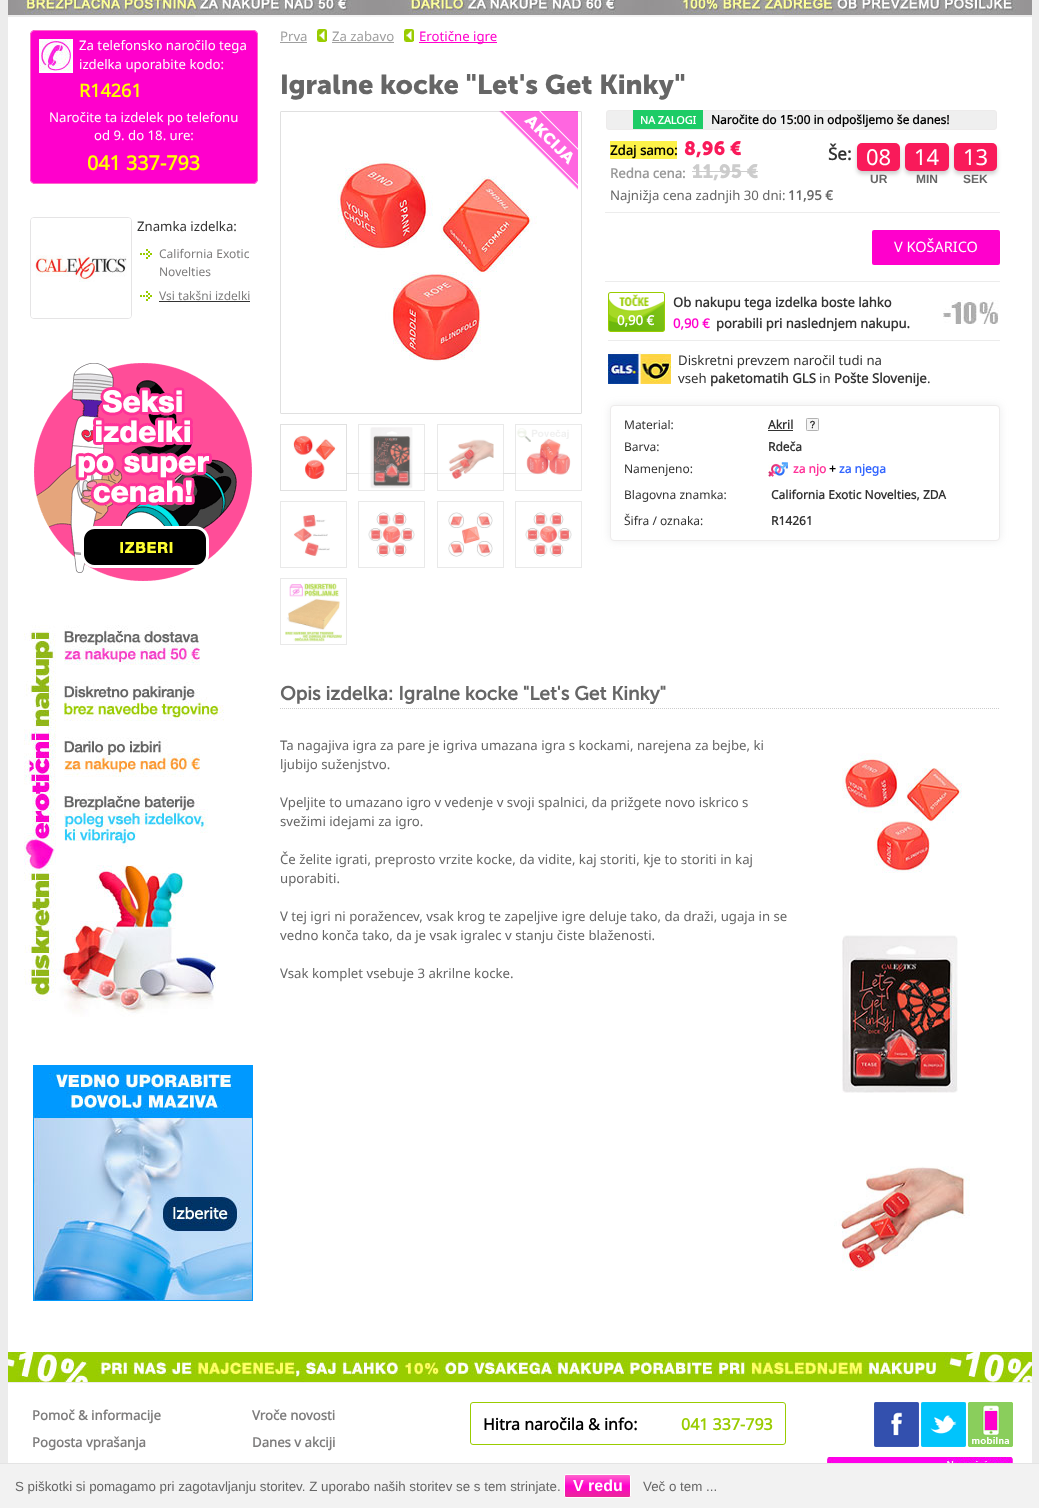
<svg xmlns="http://www.w3.org/2000/svg" width="1039" height="1508">
<defs>
<clipPath id="clip1"><rect x="564" y="1474" width="67" height="24" rx="2"/></clipPath>
<linearGradient id="g1" gradientUnits="userSpaceOnUse" x1="598" y1="1475" x2="598" y2="1497"><stop offset="0" stop-color="#f6c"/><stop offset="0.5" stop-color="#f0c"/><stop offset="0.51" stop-color="#f0c"/><stop offset="1" stop-color="#e92896"/></linearGradient>
</defs>
<rect width="100%" height="100%" fill="#ececec"/>
<image x="195" y="15" width="589" height="2" href="media/1.png"/>
<image x="8" y="0" width="1024" height="15" href="media/2.png"/>
<rect x="8" y="17" width="1024" height="1335" fill="#fff"/>
<rect x="30" y="30" width="228" height="154" rx="5" fill="#f0c"/>
<image x="39" y="39" width="34" height="34" href="media/3.png"/>
<rect x="30.5" y="30.5" width="227" height="153" rx="4.5" fill="none" stroke="#f6c"/>
<text x="79" y="50" style="font-family:Noto Sans;font-size:13.2px;fill:#fff">Za telefonsko naročilo tega</text>
<text x="79" y="69" style="font-family:Noto Sans;font-size:13.2px;fill:#fff">izdelka uporabite kodo:</text>
<text x="79" y="97" style="font-family:Noto Sans;font-size:18px;font-weight:bold;fill:#ff0">R14261</text>
<text x="49" y="122" style="font-family:Noto Sans;font-size:13.2px;fill:#fff">Naročite ta izdelek po telefonu</text>
<text x="94" y="140" style="font-family:Noto Sans;font-size:13.2px;fill:#fff">od 9. do 18. ure:</text>
<text x="87" y="170" style="font-family:Noto Sans;font-size:19.75px;font-weight:bold;fill:#ff0">041 337-793</text>
<rect x="30.5" y="217.5" width="101" height="101" rx="3.5" fill="none" stroke="#e5e4e5"/>
<image x="31" y="218" width="100" height="100" href="media/4.png"/>
<text x="137" y="231" style="font-family:Noto Sans;font-size:13.2px;fill:#333">Znamka izdelka:</text>
<image x="140" y="249" width="12" height="10" href="media/5.png"/>
<text x="159" y="258" style="font-family:Noto Sans;font-size:12px;fill:#7e7d7d">California Exotic</text>
<text x="159" y="276" style="font-family:Noto Sans;font-size:12px;fill:#7e7d7d">Novelties</text>
<image x="140" y="291" width="12" height="10" href="media/5.png"/>
<text x="159" y="300" style="font-family:Noto Sans;font-size:12px;fill:#7e7d7d">Vsi takšni izdelki</text>
<rect x="159" y="301" width="91" height="1" fill="#333"/>
<image x="34" y="363" width="218" height="218" href="media/6.png"/>
<image x="24" y="625" width="200" height="392" href="media/7.png"/>
<image x="33" y="1065" width="220" height="236" href="media/8.png"/>
<text x="280" y="41" style="font-family:Noto Sans;font-size:13.2px;fill:#9f9f9f">Prva</text>
<rect x="280" y="42" width="27" height="1" fill="#9f9f9f"/>
<image x="317" y="29" width="10" height="13" href="media/9.png"/>
<text x="332" y="41" style="font-family:Noto Sans;font-size:13.2px;fill:#9f9f9f">Za zabavo</text>
<rect x="332" y="42" width="62" height="1" fill="#9f9f9f"/>
<image x="404" y="29" width="10" height="13" href="media/9.png"/>
<rect x="419" y="42" width="78" height="1" fill="#f0c"/>
<text x="419" y="41" style="font-family:Noto Sans;font-size:13.2px;fill:#f0c">Erotične igre</text>
<text x="280" y="94" style="font-family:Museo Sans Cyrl;font-size:27.25px;font-weight:bold;fill:#666">Igralne kocke "Let's Get Kinky"</text>
<rect x="280.5" y="111.5" width="301" height="302" rx="0.5" fill="none" stroke="#e0e0e0"/>
<image x="337" y="160" width="200" height="202" href="media/10.png"/>
<image x="281" y="428" width="288" height="46" href="media/11.png"/>
<rect x="280.5" y="424.5" width="66" height="66" fill="none" stroke="#e0e0e0"/>
<image x="281" y="435" width="65" height="45" href="media/12.png"/>
<rect x="358.5" y="424.5" width="66" height="66" fill="none" stroke="#e0e0e0b3"/>
<image x="359" y="427" width="65" height="62" href="media/13.png"/>
<rect x="437.5" y="424.5" width="66" height="66" fill="none" stroke="#e0e0e0b3"/>
<image x="438" y="439" width="65" height="40" href="media/14.png"/>
<rect x="515.5" y="424.5" width="66" height="66" fill="none" stroke="#e0e0e0b3"/>
<image x="516" y="428" width="55" height="47" href="media/15.png"/>
<rect x="280.5" y="501.5" width="66" height="66" fill="none" stroke="#e9e9e9"/>
<image x="293" y="514" width="37" height="42" href="media/16.png"/>
<rect x="358.5" y="501.5" width="66" height="66" fill="none" stroke="#e9e9e9"/>
<image x="368" y="512" width="47" height="45" href="media/17.png"/>
<rect x="437.5" y="501.5" width="66" height="66" fill="none" stroke="#e9e9e9"/>
<image x="448" y="512" width="45" height="45" href="media/18.png"/>
<rect x="515.5" y="501.5" width="66" height="66" fill="none" stroke="#e9e9e9"/>
<image x="525" y="512" width="47" height="45" href="media/19.png"/>
<rect x="280.5" y="578.5" width="66" height="66" fill="none" stroke="#e9e9e9"/>
<image x="285" y="583" width="57" height="59" href="media/20.png"/>
<rect x="606.5" y="110.5" width="390" height="19" rx="2.5" fill="#efefef" stroke="#edebeb"/>
<rect x="633" y="110" width="70" height="19" fill="#1dcc66"/>
<text x="640" y="124" style="font-family:Noto Sans;font-size:10.75px;font-weight:bold;fill:#fff">NA ZALOGI</text>
<text x="711" y="124" style="font-family:Noto Sans;font-size:12px;font-weight:bold;fill:#000">Naročite do 15:00 in odpošljemo še danes!</text>
<image x="499" y="111" width="79" height="79" href="media/21.png"/>
<rect x="610" y="141" width="67" height="18" fill="#fdf249"/>
<text x="610" y="155" style="font-family:Noto Sans;font-size:13.2px;font-weight:bold;fill:#000">Zdaj samo:</text>
<text x="684" y="155" style="font-family:Museo Sans Cyrl;font-size:19.2px;font-weight:bold;fill:#f91a5a">8,96 €</text>
<text x="828" y="160" style="font-family:Noto Sans;font-size:17px;font-weight:bold;fill:#333">Še:</text>
<rect x="857" y="146" width="43" height="28" rx="5" fill="#00000033" filter="blur(2px)"/>
<rect x="857" y="143" width="43" height="28" rx="5" fill="#f91a5a"/>
<text x="866" y="165" style="font-family:Noto Sans;font-size:22px;fill:#fff">08</text>
<rect x="905" y="146" width="44" height="28" rx="5" fill="#00000033" filter="blur(2px)"/>
<rect x="905" y="143" width="44" height="28" rx="5" fill="#f91a5a"/>
<text x="914" y="165" style="font-family:Noto Sans;font-size:22px;fill:#fff">14</text>
<rect x="954" y="146" width="43" height="28" rx="5" fill="#00000033" filter="blur(2px)"/>
<rect x="954" y="143" width="43" height="28" rx="5" fill="#f91a5a"/>
<text x="963" y="165" style="font-family:Noto Sans;font-size:22px;fill:#fff">13</text>
<text x="870" y="183" style="font-family:Liberation Sans;font-size:12px;font-weight:bold;fill:#666">UR</text>
<text x="916" y="183" style="font-family:Liberation Sans;font-size:12px;font-weight:bold;fill:#666">MIN</text>
<text x="963" y="183" style="font-family:Liberation Sans;font-size:12px;font-weight:bold;fill:#666">SEK</text>
<text x="610" y="178" style="font-family:Noto Sans;font-size:13.2px;font-weight:bold;fill:#999">Redna cena:</text>
<text x="692" y="178" style="font-family:Museo Sans Cyrl;font-size:19.2px;font-weight:bold;fill:#ccc">11,95 €</text>
<rect x="692" y="171" width="66" height="1" fill="#ccc"/>
<text x="610" y="200" style="font-family:Noto Sans;font-size:13.2px;fill:#666">Najnižja cena zadnjih 30 dni:</text>
<text x="788" y="200" style="font-family:Noto Sans;font-size:13.2px;font-weight:bold;fill:#666">11,95 €</text>
<rect x="605" y="212" width="395" height="1" fill="#ececec"/>
<rect x="605" y="281" width="395" height="1" fill="#ececec"/>
<rect x="872" y="230" width="128" height="35" rx="2" fill="#f0c"/>
<text x="894" y="252" style="font-family:Noto Sans;font-size:14.5px;fill:#fff">V KOŠARICO</text>
<image x="608" y="292" width="57" height="40" href="media/22.png"/>
<text x="617" y="325" style="font-family:Noto Sans;font-size:13.2px;font-weight:bold;fill:#fff">0,90 €</text>
<text x="673" y="307" style="font-family:Noto Sans;font-size:13px;font-weight:bold;fill:#333">Ob nakupu tega izdelka boste lahko</text>
<text x="673" y="328" style="font-family:Noto Sans;font-size:13px;font-weight:bold;fill:#f0c">0,90 €</text>
<text x="716" y="328" style="font-family:Noto Sans;font-size:13px;font-weight:bold;fill:#333">porabili pri naslednjem nakupu.</text>
<rect x="608" y="340" width="392" height="1" fill="#ececec"/>
<image x="608" y="351" width="63" height="33" href="media/23.png"/>
<text x="678" y="365" style="font-family:Noto Sans;font-size:13.2px;fill:#333">Diskretni prevzem naročil tudi na</text>
<text x="678" y="383" style="font-family:Noto Sans;font-size:13.2px;fill:#333">vseh</text>
<text x="710" y="383" style="font-family:Noto Sans;font-size:13.2px;font-weight:bold;fill:#333">paketomatih GLS</text>
<text x="819" y="383" style="font-family:Noto Sans;font-size:13.2px;fill:#333">in</text>
<text x="834" y="383" style="font-family:Noto Sans;font-size:13.2px;font-weight:bold;fill:#333">Pošte Slovenije</text>
<text x="927" y="383" style="font-family:Noto Sans;font-size:13.2px;fill:#333">.</text>
<rect x="610" y="405" width="390" height="136" rx="4" fill="#797e8526" filter="blur(4.5px)"/>
<rect x="610.5" y="405.5" width="389" height="135" rx="3.5" fill="#fff" stroke="#edebeb"/>
<text x="624" y="429" style="font-family:Noto Sans;font-size:12px;fill:#333">Material:</text>
<text x="768" y="429" style="font-family:Noto Sans;font-size:12px;font-weight:bold;fill:#333">Akril</text>
<rect x="768" y="430" width="25" height="1" fill="#333"/>
<image x="806" y="418" width="13" height="13" href="media/24.png"/>
<text x="624" y="451" style="font-family:Noto Sans;font-size:12px;fill:#333">Barva:</text>
<text x="768" y="451" style="font-family:Noto Sans;font-size:12px;font-weight:bold;fill:#333">Rdeča</text>
<text x="624" y="473" style="font-family:Noto Sans;font-size:12px;fill:#333">Namenjeno:</text>
<image x="768" y="462" width="20" height="15" href="media/25.png"/>
<text x="793" y="473" style="font-family:Noto Sans;font-size:12px;font-weight:bold;fill:#f39">za njo</text>
<text x="829" y="473" style="font-family:Noto Sans;font-size:12px;font-weight:bold;fill:#000">+</text>
<text x="839" y="473" style="font-family:Noto Sans;font-size:12px;font-weight:bold;fill:#36f">za njega</text>
<text x="624" y="499" style="font-family:Noto Sans;font-size:12px;fill:#333">Blagovna znamka:</text>
<text x="771" y="499" style="font-family:Noto Sans;font-size:12px;font-weight:bold;fill:#333">California Exotic Novelties, ZDA</text>
<text x="624" y="525" style="font-family:Noto Sans;font-size:12px;fill:#333">Šifra / oznaka:</text>
<text x="771" y="525" style="font-family:Noto Sans;font-size:12px;font-weight:bold;fill:#333">R14261</text>
<image x="943" y="300" width="56" height="24" href="media/26.png"/>
<text x="280" y="700" style="font-family:Museo Sans;font-size:19.2px;font-weight:bold;fill:#666">Opis izdelka: Igralne kocke "Let's Get Kinky"</text>
<path d="M280 708.5h720" fill="none" stroke="#ccc" stroke-dasharray="1 1"/>
<text x="280" y="750" style="font-family:Noto Sans;font-size:13.2px;fill:#666">Ta nagajiva igra za pare je igriva umazana igra s kockami, narejena za bejbe, ki</text>
<text x="280" y="769" style="font-family:Noto Sans;font-size:13.2px;fill:#666">ljubijo suženjstvo.</text>
<text x="280" y="807" style="font-family:Noto Sans;font-size:13.2px;fill:#666">Vpeljite to umazano igro v vedenje v svoji spalnici, da prižgete novo iskrico s</text>
<text x="280" y="826" style="font-family:Noto Sans;font-size:13.2px;fill:#666">svežimi idejami za igro.</text>
<text x="280" y="864" style="font-family:Noto Sans;font-size:13.2px;fill:#666">Če želite igrati, preprosto vrzite kocke, da vidite, kaj storiti, kje to storiti in kaj</text>
<text x="280" y="883" style="font-family:Noto Sans;font-size:13.2px;fill:#666">uporabiti.</text>
<text x="280" y="921" style="font-family:Noto Sans;font-size:13.2px;fill:#666">V tej igri ni poražencev, vsak krog te zapeljive igre deluje tako, da draži, ugaja in se</text>
<text x="280" y="940" style="font-family:Noto Sans;font-size:13.2px;fill:#666">vedno konča tako, da je vsak igralec v stanju čiste blaženosti.</text>
<text x="280" y="978" style="font-family:Noto Sans;font-size:13.2px;fill:#666">Vsak komplet vsebuje 3 akrilne kocke.</text>
<image x="842" y="753" width="120" height="120" href="media/27.png"/>
<image x="842" y="935" width="116" height="158" href="media/28.png"/>
<image x="834" y="1166" width="136" height="105" href="media/29.png"/>
<image x="8" y="1352" width="1024" height="30" href="media/30.png"/>
<rect x="8" y="1383" width="1024" height="80" fill="#fff"/>
<text x="32" y="1420" style="font-family:Noto Sans;font-size:13.2px;font-weight:bold;fill:#7e7d7d">Pomoč &amp; informacije</text>
<text x="32" y="1447" style="font-family:Noto Sans;font-size:13.2px;font-weight:bold;fill:#7e7d7d">Pogosta vprašanja</text>
<text x="252" y="1420" style="font-family:Noto Sans;font-size:13.2px;font-weight:bold;fill:#7e7d7d">Vroče novosti</text>
<text x="252" y="1447" style="font-family:Noto Sans;font-size:13.2px;font-weight:bold;fill:#7e7d7d">Danes v akciji</text>
<rect x="470.5" y="1402.5" width="315" height="42" rx="2.5" fill="none" stroke="#9c0"/>
<text x="483" y="1430" style="font-family:Noto Sans;font-size:16px;font-weight:bold;fill:#000">Hitra naročila &amp; info:</text>
<text x="681" y="1430" style="font-family:Noto Sans;font-size:16px;font-weight:bold;fill:#9c0">041 337-793</text>
<image x="874" y="1402" width="45" height="45" href="media/31.png"/>
<image x="921" y="1402" width="45" height="45" href="media/32.png"/>
<image x="968" y="1402" width="45" height="45" href="media/33.png"/>
<image x="827" y="1457" width="186" height="6" href="media/34.png"/>
<rect y="1464" width="1039" height="44" fill="#f2f2f2"/>
<rect y="1463" width="1039" height="1" fill="#e4e4e4"/>
<text x="15" y="1491" style="font-family:Liberation Sans;font-size:13.35px;fill:#666">S piškotki si pomagamo pri zagotavljanju storitev. Z uporabo naših storitev se s tem strinjate.</text>
<g clip-path="url(#clip1)">
<rect x="564" y="1475" width="67" height="22" fill="url(#g1)"/>
</g>
<rect x="564.5" y="1474.5" width="66" height="23" rx="1.5" fill="none" stroke="#fff"/>
<text x="573" y="1491" style="font-family:Liberation Sans;font-size:16px;font-weight:bold;fill:#fff">V redu</text>
<text x="643" y="1491" style="font-family:Liberation Sans;font-size:13.35px;fill:#666">Več o tem ...</text>
</svg>
